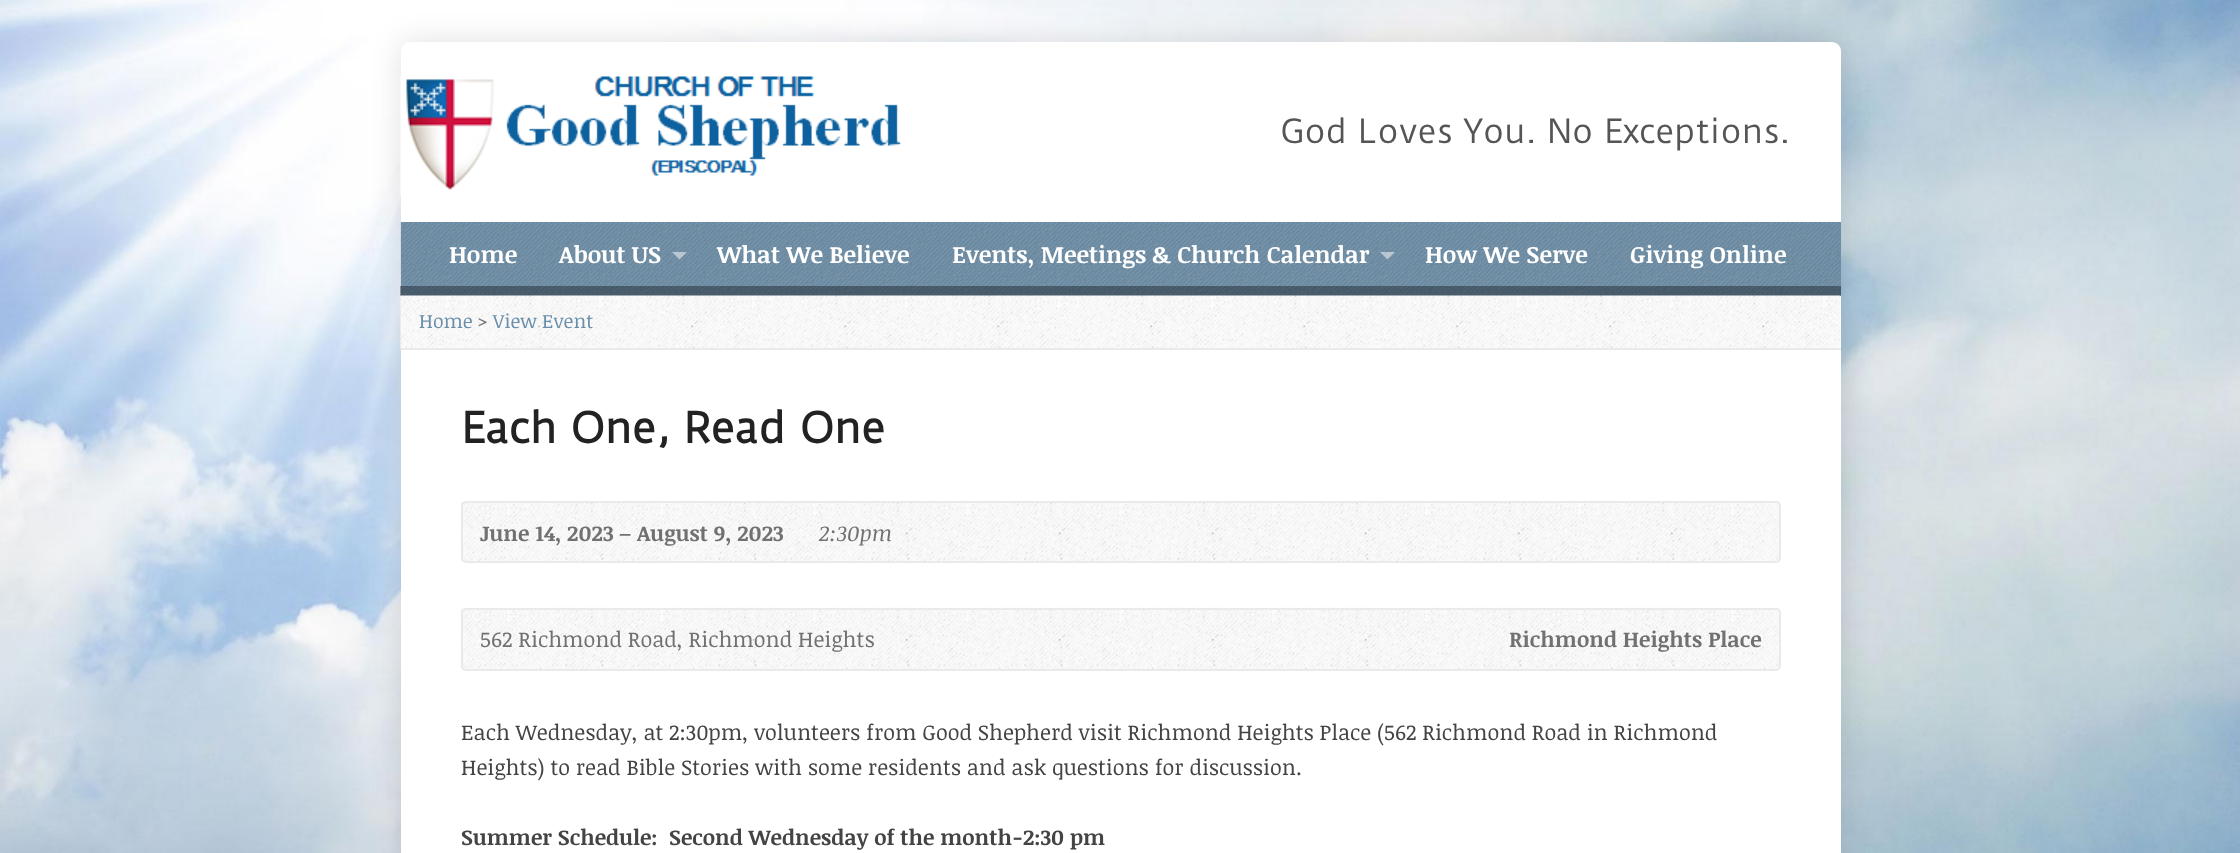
<svg xmlns="http://www.w3.org/2000/svg" width="2240" height="853">
<rect width="100%" height="100%" fill="#fff"/>
<image x="0" y="0" width="2240" height="853" href="media/1.png"/>
<rect x="401" y="42" width="1440" height="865" rx="9" fill="#0000001f" filter="blur(15px)"/>
<rect x="401" y="42" width="1440" height="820" rx="9" fill="#fff"/>
<image x="400" y="76" width="501" height="119" href="media/2.png"/>
<text x="1280" y="143" style="font-family:Duru Sans;font-size:32.4px;fill:#555">God Loves You. No Exceptions.</text>
<rect x="401" y="222" width="1440" height="74" fill="#6a8fab"/>
<image x="400" y="222" width="1441" height="74" href="media/3.png"/>
<text x="449" y="263" style="font-family:Noticia Text;font-size:23.75px;font-weight:bold;fill:#fff">Home</text>
<text x="559" y="263" style="font-family:Noticia Text;font-size:23.75px;font-weight:bold;fill:#fff">About US</text>
<path d="M672 252h15l-7.5 7.5z" fill="#ffffff80"/>
<text x="717" y="263" style="font-family:Noticia Text;font-size:23.75px;font-weight:bold;fill:#fff">What We Believe</text>
<text x="952" y="263" style="font-family:Noticia Text;font-size:23.75px;font-weight:bold;fill:#fff">Events, Meetings &amp; Church Calendar</text>
<path d="M1380 252h15l-7.5 7.5z" fill="#ffffff80"/>
<text x="1425" y="263" style="font-family:Noticia Text;font-size:23.75px;font-weight:bold;fill:#fff">How We Serve</text>
<text x="1630" y="263" style="font-family:Noticia Text;font-size:23.75px;font-weight:bold;fill:#fff">Giving Online</text>
<rect x="400" y="286" width="1441" height="10" fill="#00000059"/>
<image x="400" y="295" width="1441" height="55" href="media/4.png"/>
<rect x="401" y="348" width="1440" height="2" fill="#eaeaea"/>
<text x="419" y="328" style="font-family:Noticia Text;font-size:19.5px;fill:#6a8fab">Home</text>
<text x="477" y="328" style="font-family:Noticia Text;font-size:19.5px;fill:#777">&gt;</text>
<text x="493" y="328" style="font-family:Noticia Text;font-size:19.5px;fill:#6a8fab">View Event</text>
<text x="461" y="443" style="font-family:Duru Sans;font-size:41px;font-weight:bold;fill:#222">Each One, Read One</text>
<image x="460" y="501" width="1320" height="62" href="media/5.png"/>
<rect x="462" y="502" width="1318" height="60" rx="4" fill="none" stroke="#eaeaea" stroke-width="2"/>
<text x="480" y="541" style="font-family:Noticia Text;font-size:21.6px;font-weight:bold;fill:#717171">June 14, 2023 – August 9, 2023</text>
<text x="819" y="541" style="font-family:Noticia Text;font-size:21.6px;font-style:italic;fill:#717171">2:30pm</text>
<image x="460" y="607" width="1321" height="64" href="media/6.png"/>
<rect x="462" y="609" width="1318" height="61" rx="4" fill="none" stroke="#eaeaea" stroke-width="2"/>
<text x="480" y="647" style="font-family:Noticia Text;font-size:21.6px;fill:#717171">562 Richmond Road, Richmond Heights</text>
<text x="1509" y="647" style="font-family:Noticia Text;font-size:21.6px;font-weight:bold;fill:#717171">Richmond Heights Place</text>
<text x="461" y="740" style="font-family:Noticia Text;font-size:21.6px;fill:#444">Each Wednesday, at 2:30pm, volunteers from Good Shepherd visit Richmond Heights Place (562 Richmond Road in Richmond</text>
<text x="461" y="775" style="font-family:Noticia Text;font-size:21.6px;fill:#444">Heights) to read Bible Stories with some residents and ask questions for discussion.</text>
<text x="461" y="845" style="font-family:Noticia Text;font-size:21.6px;font-weight:bold;fill:#444" xml:space="preserve">Summer Schedule:  Second Wednesday of the month-2:30 pm</text>
</svg>
